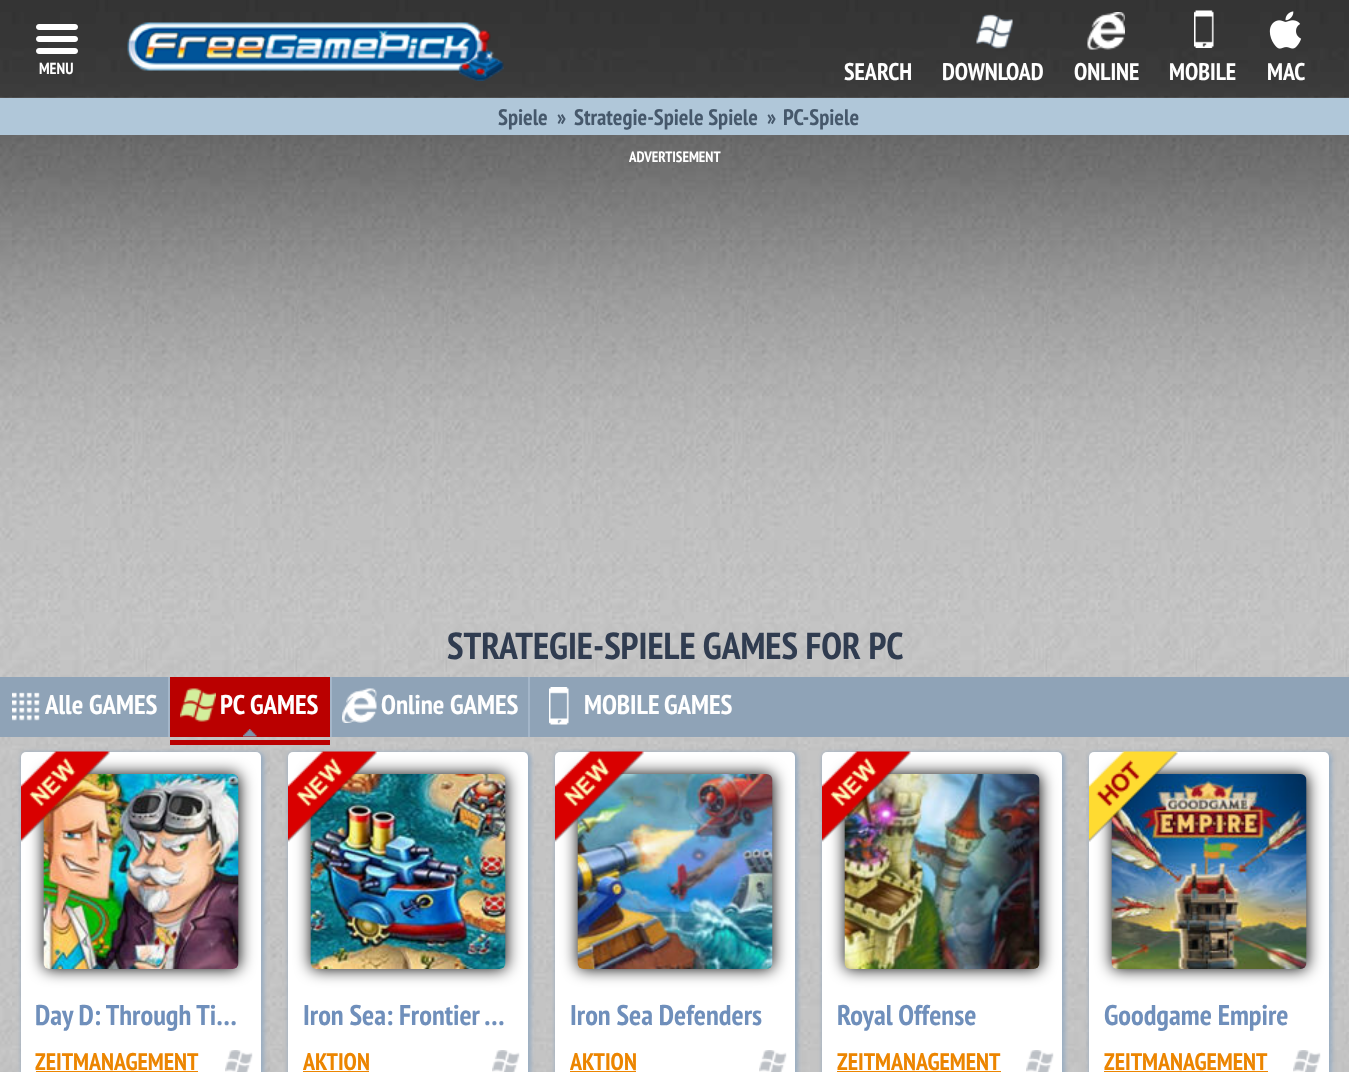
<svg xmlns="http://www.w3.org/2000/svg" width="1349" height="1072">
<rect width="100%" height="100%" fill="#fff"/>
<image x="0" y="737" width="1349" height="335" href="media/1.png"/>
<image x="0" y="0" width="1349" height="677" href="media/2.png"/>
<image x="36" y="24" width="42" height="30" href="media/3.png"/>
<text x="39" y="74" style="font-family:PT Sans Narrow;font-size:16px;font-weight:bold;fill:#fff">MENU</text>
<image x="127" y="22" width="377" height="59" href="media/4.png"/>
<text x="844" y="80" style="font-family:PT Sans Narrow;font-size:24px;font-weight:bold;fill:#fff">SEARCH</text>
<image x="976" y="14" width="37" height="35" href="media/5.png"/>
<text x="942" y="80" style="font-family:PT Sans Narrow;font-size:24px;font-weight:bold;fill:#fff">DOWNLOAD</text>
<image x="1087" y="12" width="38" height="38" href="media/6.png"/>
<text x="1074" y="80" style="font-family:PT Sans Narrow;font-size:24px;font-weight:bold;fill:#fff">ONLINE</text>
<image x="1194" y="10" width="20" height="38" href="media/7.png"/>
<text x="1169" y="80" style="font-family:PT Sans Narrow;font-size:24px;font-weight:bold;fill:#fff">MOBILE</text>
<image x="1269" y="11" width="33" height="38" href="media/8.png"/>
<text x="1267" y="80" style="font-family:PT Sans Narrow;font-size:24px;font-weight:bold;fill:#fff">MAC</text>
<rect y="98" width="1349" height="37" fill="#b0c7d9"/>
<text x="498" y="125" style="font-family:PT Sans Narrow;font-size:22.5px;font-weight:bold;fill:#46586b">Spiele</text>
<text x="557" y="125" style="font-family:PT Sans Narrow;font-size:22.5px;font-weight:bold;fill:#46586b">»</text>
<text x="574" y="125" style="font-family:PT Sans Narrow;font-size:22.5px;font-weight:bold;fill:#46586b">Strategie-Spiele Spiele</text>
<text x="767" y="125" style="font-family:PT Sans Narrow;font-size:22.5px;font-weight:bold;fill:#46586b">»</text>
<text x="783" y="125" style="font-family:PT Sans Narrow;font-size:22.5px;font-weight:bold;fill:#46586b">PC-Spiele</text>
<text x="629" y="162" style="font-family:PT Sans Narrow;font-size:15px;font-weight:bold;fill:#fff">ADVERTISEMENT</text>
<text x="447" y="659" style="font-family:PT Sans Narrow;font-size:37.5px;font-weight:bold;fill:#303c50">STRATEGIE-SPIELE GAMES FOR PC</text>
<rect y="677" width="1349" height="60" fill="#8fa3b7"/>
<rect x="168" y="677" width="2" height="60" fill="#a4b6c9"/>
<image x="12" y="692" width="28" height="29" href="media/9.png"/>
<text x="45" y="714" style="font-family:PT Sans Narrow;font-size:27px;font-weight:bold;fill:#fff">Alle</text>
<text x="89" y="714" style="font-family:PT Sans Narrow;font-size:27px;font-weight:bold;fill:#fff">GAMES</text>
<rect x="170" y="677" width="160" height="60" fill="#ba0000"/>
<image x="243" y="729" width="14" height="8" href="media/10.png"/>
<rect x="330" y="677" width="2" height="60" fill="#a4b6c9"/>
<image x="180" y="688" width="36" height="34" href="media/11.png"/>
<text x="220" y="714" style="font-family:PT Sans Narrow;font-size:27px;font-weight:bold;fill:#fff">PC</text>
<text x="250" y="714" style="font-family:PT Sans Narrow;font-size:27px;font-weight:bold;fill:#fff">GAMES</text>
<rect x="170" y="740" width="160" height="5" fill="#ba0000"/>
<rect x="528" y="677" width="2" height="60" fill="#a4b6c9"/>
<image x="342" y="688" width="35" height="35" href="media/12.png"/>
<text x="381" y="714" style="font-family:PT Sans Narrow;font-size:27px;font-weight:bold;fill:#fff">Online</text>
<text x="450" y="714" style="font-family:PT Sans Narrow;font-size:27px;font-weight:bold;fill:#fff">GAMES</text>
<image x="549" y="687" width="20" height="38" href="media/13.png"/>
<text x="584" y="714" style="font-family:PT Sans Narrow;font-size:27px;font-weight:bold;fill:#fff">MOBILE</text>
<text x="664" y="714" style="font-family:PT Sans Narrow;font-size:27px;font-weight:bold;fill:#fff">GAMES</text>
<rect x="21" y="752" width="243" height="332" rx="6" fill="#94aac1e6" filter="blur(2px)"/>
<rect x="21" y="752" width="240" height="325" rx="5" fill="#fff"/>
<rect x="44" y="774" width="195" height="195" rx="6" fill="#000" filter="blur(8px)"/>
<image x="43" y="774" width="196" height="195" href="media/14.png"/>
<image x="21" y="751" width="89" height="91" href="media/15.png"/>
<text x="35" y="1025" style="font-family:PT Sans Narrow;font-size:28.5px;font-weight:bold;fill:#6f8fbb">Day D: Through Ti…</text>
<text x="35" y="1070" style="font-family:PT Sans Narrow;font-size:24px;font-weight:bold;fill:#ec8500">ZEITMANAGEMENT</text>
<rect x="36" y="1071" width="162" height="1" fill="#ec8500"/>
<image x="225" y="1050" width="28" height="22" href="media/16.png"/>
<rect x="288" y="752" width="243" height="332" rx="6" fill="#94aac1e6" filter="blur(2px)"/>
<rect x="288" y="752" width="240" height="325" rx="5" fill="#fff"/>
<rect x="311" y="774" width="195" height="195" rx="6" fill="#000" filter="blur(8px)"/>
<image x="310" y="774" width="196" height="195" href="media/17.png"/>
<image x="288" y="751" width="89" height="91" href="media/18.png"/>
<text x="303" y="1025" style="font-family:PT Sans Narrow;font-size:28.5px;font-weight:bold;fill:#6f8fbb">Iron Sea: Frontier …</text>
<text x="303" y="1070" style="font-family:PT Sans Narrow;font-size:24px;font-weight:bold;fill:#ec8500">AKTION</text>
<rect x="303" y="1071" width="66" height="1" fill="#ec8500"/>
<image x="492" y="1050" width="28" height="22" href="media/19.png"/>
<rect x="555" y="752" width="243" height="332" rx="6" fill="#94aac1e6" filter="blur(2px)"/>
<rect x="555" y="752" width="240" height="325" rx="5" fill="#fff"/>
<rect x="578" y="774" width="195" height="195" rx="6" fill="#000" filter="blur(8px)"/>
<image x="577" y="774" width="196" height="195" href="media/20.png"/>
<image x="555" y="751" width="89" height="91" href="media/21.png"/>
<text x="570" y="1025" style="font-family:PT Sans Narrow;font-size:28.5px;font-weight:bold;fill:#6f8fbb">Iron Sea Defenders</text>
<text x="570" y="1070" style="font-family:PT Sans Narrow;font-size:24px;font-weight:bold;fill:#ec8500">AKTION</text>
<rect x="570" y="1071" width="66" height="1" fill="#ec8500"/>
<image x="759" y="1050" width="28" height="22" href="media/22.png"/>
<rect x="822" y="752" width="243" height="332" rx="6" fill="#94aac1e6" filter="blur(2px)"/>
<rect x="822" y="752" width="240" height="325" rx="5" fill="#fff"/>
<rect x="845" y="774" width="195" height="195" rx="6" fill="#000" filter="blur(8px)"/>
<image x="844" y="774" width="196" height="195" href="media/23.png"/>
<image x="822" y="751" width="89" height="91" href="media/24.png"/>
<text x="837" y="1025" style="font-family:PT Sans Narrow;font-size:28.5px;font-weight:bold;fill:#6f8fbb">Royal Offense</text>
<text x="837" y="1070" style="font-family:PT Sans Narrow;font-size:24px;font-weight:bold;fill:#ec8500">ZEITMANAGEMENT</text>
<rect x="837" y="1071" width="164" height="1" fill="#ec8500"/>
<image x="1026" y="1050" width="28" height="22" href="media/25.png"/>
<rect x="1089" y="752" width="243" height="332" rx="6" fill="#94aac1e6" filter="blur(2px)"/>
<rect x="1089" y="752" width="240" height="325" rx="5" fill="#fff"/>
<rect x="1112" y="774" width="195" height="195" rx="6" fill="#000" filter="blur(8px)"/>
<image x="1111" y="774" width="196" height="195" href="media/26.png"/>
<image x="1089" y="751" width="89" height="91" href="media/27.png"/>
<text x="1104" y="1025" style="font-family:PT Sans Narrow;font-size:28.5px;font-weight:bold;fill:#6f8fbb">Goodgame Empire</text>
<text x="1104" y="1070" style="font-family:PT Sans Narrow;font-size:24px;font-weight:bold;fill:#ec8500">ZEITMANAGEMENT</text>
<rect x="1104" y="1071" width="164" height="1" fill="#ec8500"/>
<image x="1293" y="1050" width="28" height="22" href="media/25.png"/>
</svg>
